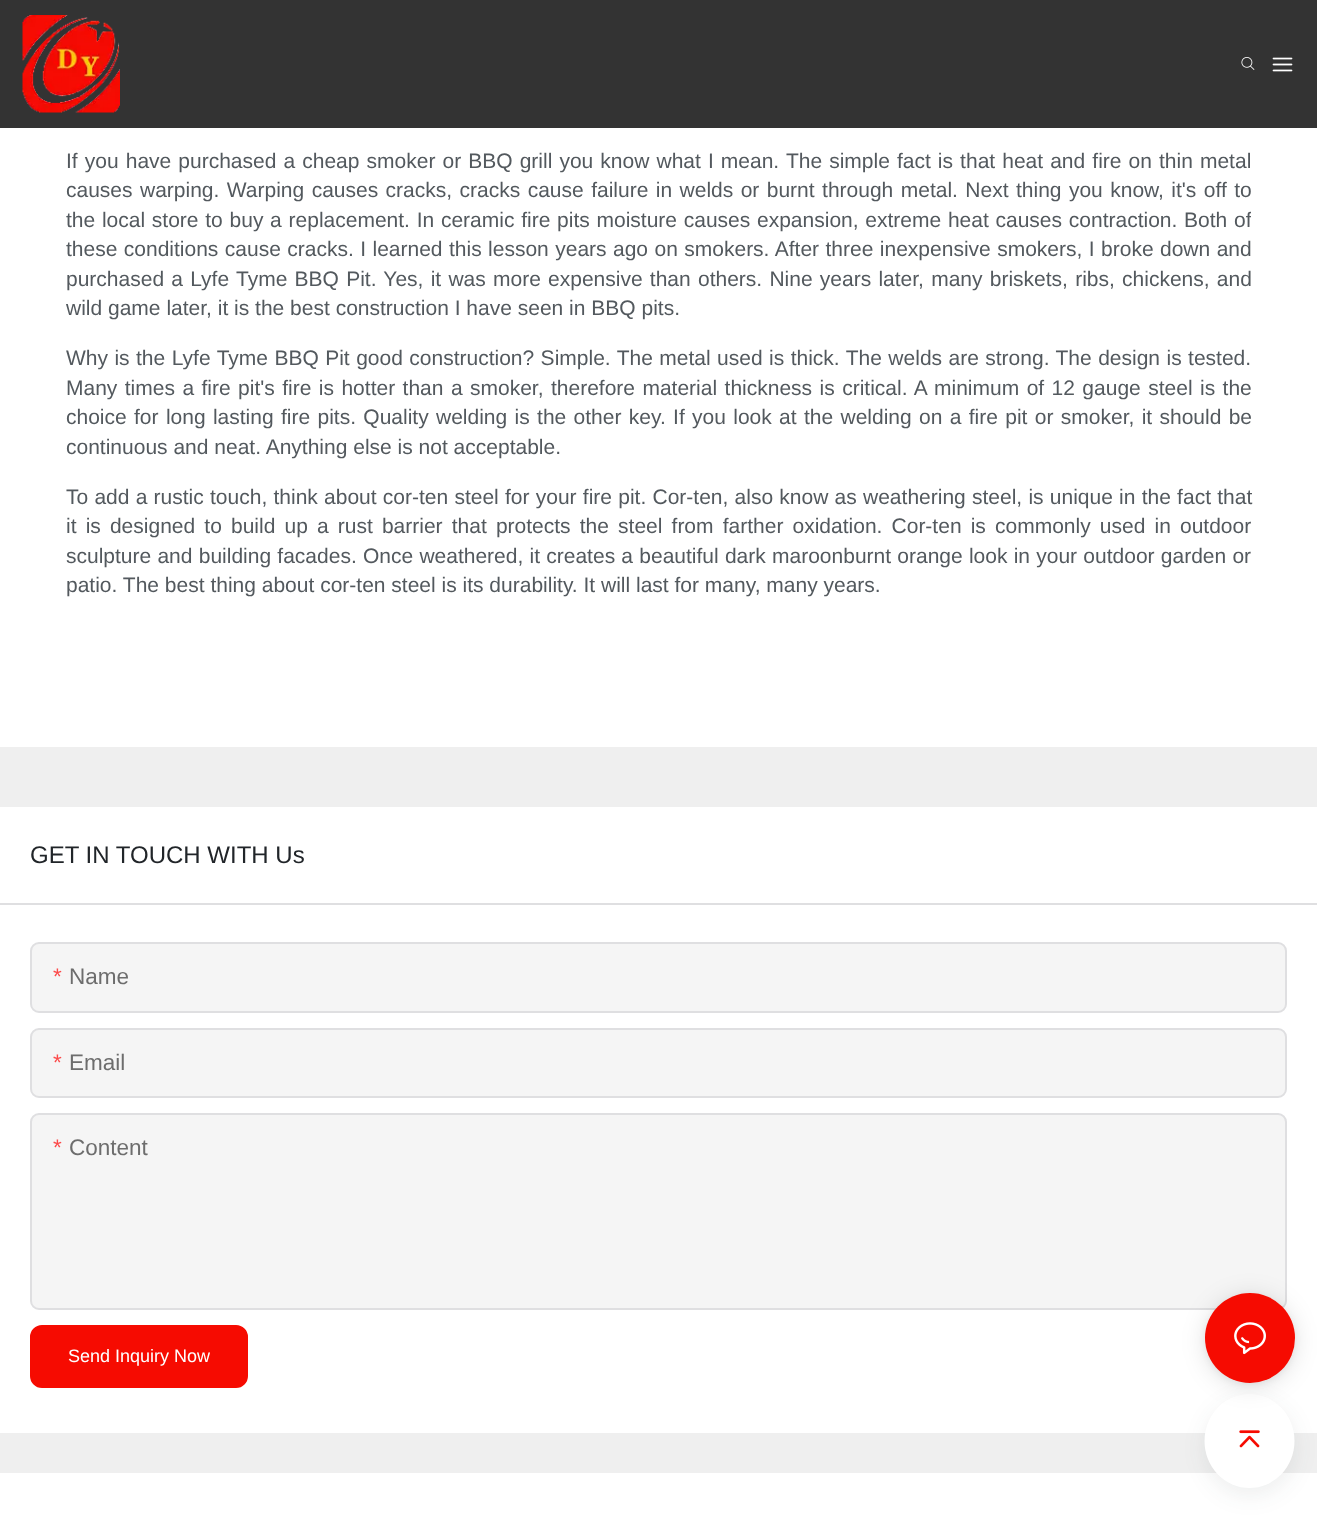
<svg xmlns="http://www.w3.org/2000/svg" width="1317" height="1536">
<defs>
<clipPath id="clip1"><rect x="66" width="1185" height="621"/></clipPath>
</defs>
<rect width="100%" height="100%" fill="#fff"/>
<rect width="1317" height="128" fill="#333"/>
<image x="22" y="15" width="98" height="98" href="media/1.png"/>
<image x="1241" y="57" width="14" height="13" href="media/2.png"/>
<image x="1272" y="57" width="21" height="15" href="media/3.png"/>
<rect y="747" width="1317" height="726" fill="#efefef"/>
<text x="66" y="168" word-spacing="1.25" style="font-family:Liberation Sans;font-size:21px;fill:#53595e">If you have purchased a cheap smoker or BBQ grill you know what I mean. The simple fact is that heat and fire on thin metal</text>
<text x="66" y="197" word-spacing="1.6" style="font-family:Liberation Sans;font-size:21px;fill:#53595e">causes warping. Warping causes cracks, cracks cause failure in welds or burnt through metal. Next thing you know, it's off to</text>
<g clip-path="url(#clip1)">
<text x="66" y="227" word-spacing="0.9" style="font-family:Liberation Sans;font-size:21px;fill:#53595e">the local store to buy a replacement. In ceramic fire pits moisture causes expansion, extreme heat causes contraction. Both of</text>
</g>
<text x="66" y="256" word-spacing="0.6" style="font-family:Liberation Sans;font-size:21px;fill:#53595e">these conditions cause cracks. I learned this lesson years ago on smokers. After three inexpensive smokers, I broke down and</text>
<text x="66" y="286" word-spacing="1.4" style="font-family:Liberation Sans;font-size:21px;fill:#53595e">purchased a Lyfe Tyme BBQ Pit. Yes, it was more expensive than others. Nine years later, many briskets, ribs, chickens, and</text>
<text x="66" y="315" style="font-family:Liberation Sans;font-size:21px;fill:#53595e">wild game later, it is the best construction I have seen in BBQ pits.</text>
<text x="66" y="365" word-spacing="0.6" style="font-family:Liberation Sans;font-size:21px;fill:#53595e">Why is the Lyfe Tyme BBQ Pit good construction? Simple. The metal used is thick. The welds are strong. The design is tested.</text>
<text x="66" y="395" word-spacing="1.6" style="font-family:Liberation Sans;font-size:21px;fill:#53595e">Many times a fire pit's fire is hotter than a smoker, therefore material thickness is critical. A minimum of 12 gauge steel is the</text>
<text x="66" y="424" word-spacing="1.5" style="font-family:Liberation Sans;font-size:21px;fill:#53595e">choice for long lasting fire pits. Quality welding is the other key. If you look at the welding on a fire pit or smoker, it should be</text>
<text x="66" y="454" style="font-family:Liberation Sans;font-size:21px;fill:#53595e">continuous and neat. Anything else is not acceptable.</text>
<text x="66" y="504" word-spacing="0.4" style="font-family:Liberation Sans;font-size:21px;fill:#53595e">To add a rustic touch, think about cor-ten steel for your fire pit. Cor-ten, also know as weathering steel, is unique in the fact that</text>
<text x="66" y="533" word-spacing="3.3" style="font-family:Liberation Sans;font-size:21px;fill:#53595e">it is designed to build up a rust barrier that protects the steel from farther oxidation. Cor-ten is commonly used in outdoor</text>
<text x="66" y="563" word-spacing="0.4" style="font-family:Liberation Sans;font-size:21px;fill:#53595e">sculpture and building facades. Once weathered, it creates a beautiful dark maroonburnt orange look in your outdoor garden or</text>
<text x="66" y="592" style="font-family:Liberation Sans;font-size:21px;fill:#53595e">patio. The best thing about cor-ten steel is its durability. It will last for many, many years.</text>
<rect y="807" width="1317" height="626" fill="#fff"/>
<rect y="903" width="1317" height="2" fill="#dfdfe1"/>
<text x="30" y="863" style="font-family:Liberation Sans;font-size:24px;fill:#212529">GET IN TOUCH WITH Us</text>
<rect x="31" y="943" width="1255" height="69" rx="8" fill="#f5f5f5" stroke="#dfdfe1" stroke-width="2"/>
<text x="53" y="984" style="font-family:Liberation Sans;font-size:22.5px;fill:#fc4a4a">*</text>
<text x="69" y="984" style="font-family:Liberation Sans;font-size:22.5px;fill:#6d6d6d">Name</text>
<rect x="31" y="1029" width="1255" height="68" rx="8" fill="#f5f5f5" stroke="#dfdfe1" stroke-width="2"/>
<text x="53" y="1070" style="font-family:Liberation Sans;font-size:22.5px;fill:#fc4a4a">*</text>
<text x="69" y="1070" style="font-family:Liberation Sans;font-size:22.5px;fill:#6d6d6d">Email</text>
<rect x="31" y="1114" width="1255" height="195" rx="8" fill="#f5f5f5" stroke="#dfdfe1" stroke-width="2"/>
<text x="53" y="1155" style="font-family:Liberation Sans;font-size:22.5px;fill:#fc4a4a">*</text>
<text x="69" y="1155" style="font-family:Liberation Sans;font-size:22.5px;fill:#6d6d6d">Content</text>
<rect x="31" y="1326" width="216" height="61" rx="11" fill="#f60b01" stroke="#f60b01" stroke-width="2"/>
<text x="68" y="1362" style="font-family:Liberation Sans;font-size:18px;fill:#fff">Send Inquiry Now</text>
<rect x="1205" y="1401" width="90" height="95" rx="45" fill="#282f3614" filter="blur(11px)"/>
<ellipse cx="1249.5" cy="1441" rx="45" ry="47" fill="#fff"/>
<rect x="1205" y="1296" width="90" height="90" rx="45" fill="#0000001f" filter="blur(12px)"/>
<rect x="1205" y="1295" width="90" height="90" rx="45" fill="#0000000f" filter="blur(3px)"/>
<circle cx="1250" cy="1338" r="45" fill="#f60b01"/>
<image x="1234" y="1322" width="32" height="33" href="media/4.png"/>
<image x="1239" y="1430" width="21" height="18" href="media/5.png"/>
</svg>
